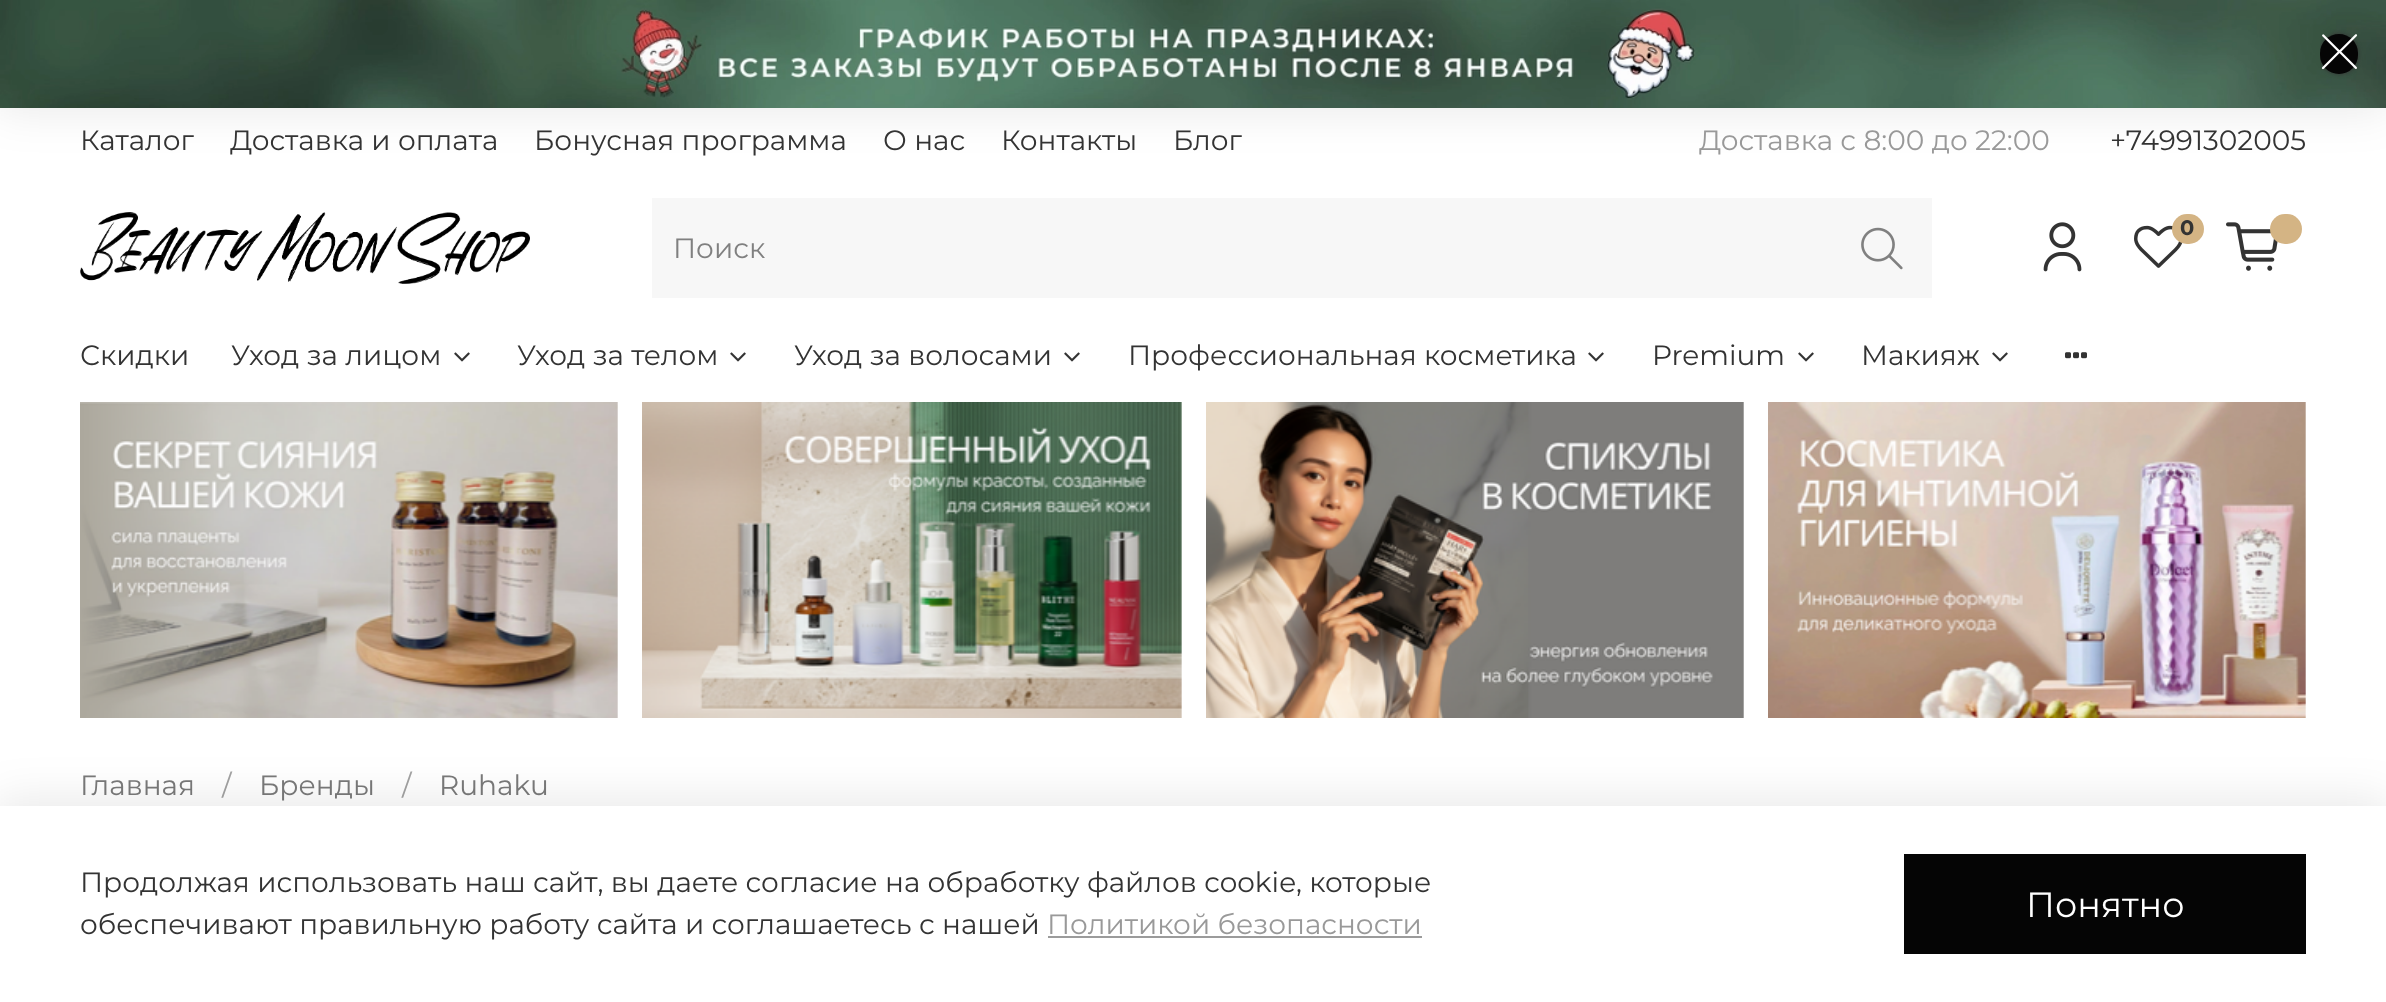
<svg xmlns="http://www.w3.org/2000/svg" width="2386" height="1002">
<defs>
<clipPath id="clip1"><rect x="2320" y="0" width="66" height="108"/></clipPath>
</defs>
<rect width="100%" height="100%" fill="#fff"/>
<rect x="-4" y="-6" width="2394" height="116" fill="#00000017" filter="blur(23px)"/>
<image x="0" y="0" width="2386" height="108" href="media/1.png"/>
<g clip-path="url(#clip1)">
<rect x="2320" y="34" width="38" height="40" rx="19" fill="#333" filter="blur(2px)"/>
</g>
<rect x="2320" y="34" width="38" height="40" rx="19" fill="#050505"/>
<image x="2321" y="34" width="37" height="36" href="media/2.png"/>
<text x="80" y="150" style="font-family:Montserrat;font-size:28px;fill:#333">Каталог</text>
<text x="230" y="150" style="font-family:Montserrat;font-size:28px;fill:#333">Доставка и оплата</text>
<text x="534" y="150" style="font-family:Montserrat;font-size:28px;fill:#333">Бонусная программа</text>
<text x="883" y="150" style="font-family:Montserrat;font-size:28px;fill:#333">О нас</text>
<text x="1001" y="150" style="font-family:Montserrat;font-size:28px;fill:#333">Контакты</text>
<text x="1173" y="150" style="font-family:Montserrat;font-size:28px;fill:#333">Блог</text>
<text x="1699" y="150" style="font-family:Montserrat;font-size:28px;fill:#999">Доставка с 8:00 до 22:00</text>
<text x="2110" y="150" style="font-family:Montserrat;font-size:28px;fill:#333">+74991302005</text>
<image x="80" y="212" width="450" height="72" href="media/3.png"/>
<image x="2043" y="222" width="39" height="50" href="media/4.png"/>
<image x="2134" y="225" width="49" height="43" href="media/5.png"/>
<rect x="2172" y="214" width="32" height="30" rx="15" fill="#d4b484"/>
<text x="2180" y="235" style="font-family:Montserrat;font-size:21px;font-weight:bold;fill:#333">0</text>
<image x="2226" y="222" width="52" height="49" href="media/6.png"/>
<rect x="2270" y="214" width="32" height="30" rx="15" fill="#d4b484"/>
<rect x="652" y="198" width="1280" height="100" fill="#f7f7f7"/>
<text x="673" y="258" style="font-family:Montserrat;font-size:28px;fill:#808080">Поиск</text>
<image x="1861" y="227" width="42" height="43" href="media/7.png"/>
<text x="80" y="365" style="font-family:Montserrat;font-size:28px;fill:#333">Скидки</text>
<text x="231" y="365" style="font-family:Montserrat;font-size:28px;fill:#333">Уход за лицом</text>
<image x="454" y="352" width="16" height="10" href="media/8.png"/>
<text x="517" y="365" style="font-family:Montserrat;font-size:28px;fill:#333">Уход за телом</text>
<image x="730" y="352" width="16" height="10" href="media/8.png"/>
<text x="794" y="365" style="font-family:Montserrat;font-size:28px;fill:#333">Уход за волосами</text>
<image x="1064" y="352" width="16" height="10" href="media/8.png"/>
<text x="1128" y="365" style="font-family:Montserrat;font-size:28px;fill:#333">Профессиональная косметика</text>
<image x="1588" y="352" width="16" height="10" href="media/8.png"/>
<text x="1652" y="365" style="font-family:Montserrat;font-size:28px;fill:#333">Premium</text>
<image x="1798" y="352" width="16" height="10" href="media/8.png"/>
<text x="1861" y="365" style="font-family:Montserrat;font-size:28px;fill:#333">Макияж</text>
<image x="1992" y="352" width="16" height="10" href="media/8.png"/>
<image x="2065" y="352" width="22" height="7" href="media/9.png"/>
<image x="80" y="402" width="538" height="316" href="media/10.png"/>
<image x="642" y="402" width="540" height="316" href="media/11.png"/>
<image x="1206" y="402" width="538" height="316" href="media/12.png"/>
<image x="1768" y="402" width="538" height="316" href="media/13.png"/>
<text x="80" y="795" style="font-family:Montserrat;font-size:28px;fill:#7a7a7a">Главная</text>
<text x="222" y="795" style="font-family:Montserrat;font-size:28px;fill:#a2a2a2">/</text>
<text x="259" y="795" style="font-family:Montserrat;font-size:28px;fill:#7a7a7a">Бренды</text>
<text x="402" y="795" style="font-family:Montserrat;font-size:28px;fill:#a2a2a2">/</text>
<text x="439" y="795" style="font-family:Montserrat;font-size:28px;fill:#7a7a7a">Ruhaku</text>
<rect x="-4" y="800" width="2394" height="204" fill="#00000017" filter="blur(23px)"/>
<rect y="806" width="2386" height="196" fill="#fff"/>
<text x="80" y="892" style="font-family:Montserrat;font-size:28px;fill:#333">Продолжая использовать наш сайт, вы даете согласие на обработку файлов cookie, которые</text>
<text x="80" y="934" style="font-family:Montserrat;font-size:28px;fill:#333">обеспечивают правильную работу сайта и соглашаетесь с нашей</text>
<text x="1047" y="934" style="font-family:Montserrat;font-size:28px;fill:#999">Политикой безопасности</text>
<rect x="1048" y="936" width="374" height="2" fill="#9b9b9b"/>
<rect x="1904" y="854" width="402" height="100" fill="#050505"/>
<text x="2026" y="917" style="font-family:Montserrat;font-size:35px;fill:#fff">Понятно</text>
</svg>
